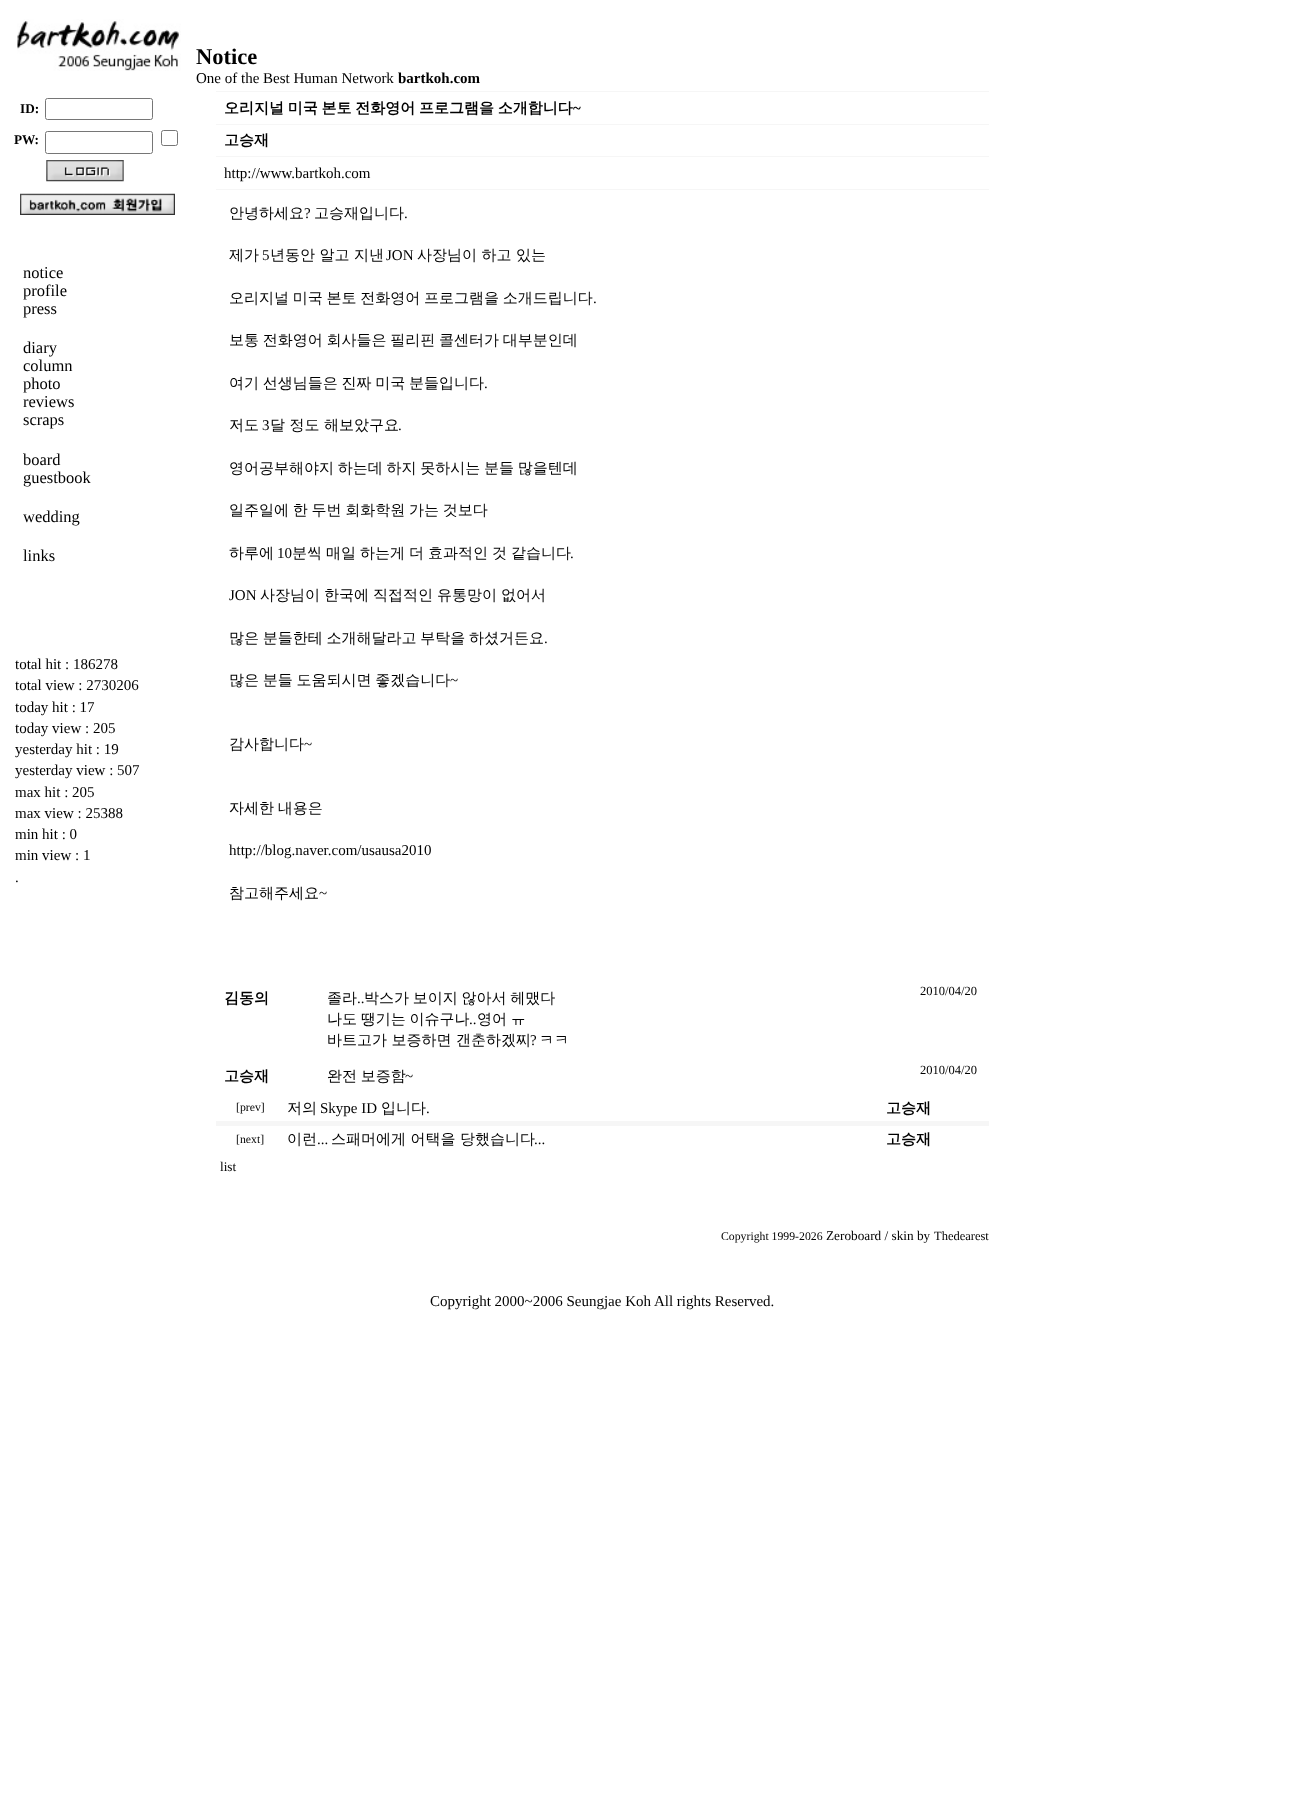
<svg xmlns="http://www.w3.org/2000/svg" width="1290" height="1815">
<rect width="100%" height="100%" fill="#fff"/>
<image x="17" y="19" width="164" height="52" href="media/1.png"/>
<text x="20" y="113" style="font-family:Liberation Serif;font-size:13.25px;font-weight:bold;fill:#000">ID:</text>
<rect x="45.5" y="98.5" width="107" height="21" rx="2" fill="none" stroke="#767676"/>
<text x="14" y="144" style="font-family:Liberation Serif;font-size:13.25px;font-weight:bold;fill:#000">PW:</text>
<rect x="45.5" y="131.5" width="107" height="22" rx="2" fill="none" stroke="#767676"/>
<rect x="161.5" y="130.5" width="16" height="15" rx="2" fill="none" stroke="#767676"/>
<image x="46" y="160" width="78" height="22" href="media/2.png"/>
<image x="20" y="193" width="155" height="22" href="media/3.png"/>
<text x="23" y="278" style="font-family:Liberation Serif;font-size:16.5px;fill:#000">notice</text>
<text x="23" y="296" style="font-family:Liberation Serif;font-size:16.5px;fill:#000">profile</text>
<text x="23" y="314" style="font-family:Liberation Serif;font-size:16.5px;fill:#000">press</text>
<text x="23" y="353" style="font-family:Liberation Serif;font-size:16.5px;fill:#000">diary</text>
<text x="23" y="371" style="font-family:Liberation Serif;font-size:16.5px;fill:#000">column</text>
<text x="23" y="389" style="font-family:Liberation Serif;font-size:16.5px;fill:#000">photo</text>
<text x="23" y="407" style="font-family:Liberation Serif;font-size:16.5px;fill:#000">reviews</text>
<text x="23" y="425" style="font-family:Liberation Serif;font-size:16.5px;fill:#000">scraps</text>
<text x="23" y="465" style="font-family:Liberation Serif;font-size:16.5px;fill:#000">board</text>
<text x="23" y="483" style="font-family:Liberation Serif;font-size:16.5px;fill:#000">guestbook</text>
<text x="23" y="522" style="font-family:Liberation Serif;font-size:16.5px;fill:#000">wedding</text>
<text x="23" y="561" style="font-family:Liberation Serif;font-size:16.5px;fill:#000">links</text>
<text x="15" y="669" style="font-family:Liberation Serif;font-size:15px;fill:#000">total hit : 186278</text>
<text x="15" y="690" style="font-family:Liberation Serif;font-size:15px;fill:#000">total view : 2730206</text>
<text x="15" y="712" style="font-family:Liberation Serif;font-size:15px;fill:#000">today hit : 17</text>
<text x="15" y="733" style="font-family:Liberation Serif;font-size:15px;fill:#000">today view : 205</text>
<text x="15" y="754" style="font-family:Liberation Serif;font-size:15px;fill:#000">yesterday hit : 19</text>
<text x="15" y="775" style="font-family:Liberation Serif;font-size:15px;fill:#000">yesterday view : 507</text>
<text x="15" y="797" style="font-family:Liberation Serif;font-size:15px;fill:#000">max hit : 205</text>
<text x="15" y="818" style="font-family:Liberation Serif;font-size:15px;fill:#000">max view : 25388</text>
<text x="15" y="839" style="font-family:Liberation Serif;font-size:15px;fill:#000">min hit : 0</text>
<text x="15" y="860" style="font-family:Liberation Serif;font-size:15px;fill:#000">min view : 1</text>
<text x="15" y="882" style="font-family:Liberation Serif;font-size:15px;fill:#000">.</text>
<text x="196" y="64" style="font-family:Liberation Serif;font-size:22.5px;font-weight:bold;fill:#000">Notice</text>
<text x="196" y="83" style="font-family:Liberation Serif;font-size:15px;fill:#000">One of the Best Human Network</text>
<text x="398" y="83" style="font-family:Liberation Serif;font-size:15px;font-weight:bold;fill:#000">bartkoh.com</text>
<rect x="216" y="91" width="773" height="1" fill="#f6f6f6"/>
<text x="224" y="113" word-spacing="-0.75" style="font-family:WenQuanYi Zen Hei;font-size:15px;font-weight:bold;fill:#000">오리지널 미국 본토 전화영어 프로그램을 소개합니다</text>
<text x="573" y="113" style="font-family:Liberation Serif;font-size:15px;font-weight:bold;fill:#000">~</text>
<rect x="216" y="124" width="773" height="1" fill="#f6f6f6"/>
<text x="224" y="145" style="font-family:WenQuanYi Zen Hei;font-size:15px;font-weight:bold;fill:#000">고승재</text>
<rect x="216" y="156" width="773" height="1" fill="#f6f6f6"/>
<text x="224" y="178" style="font-family:Liberation Serif;font-size:15px;fill:#000">http://www.bartkoh.com</text>
<rect x="216" y="189" width="773" height="1" fill="#f6f6f6"/>
<text x="229" y="218" style="font-family:WenQuanYi Zen Hei;font-size:15px;font-weight:500;fill:#000">안녕하세요</text>
<text x="304" y="218" style="font-family:Liberation Serif;font-size:15px;fill:#000">?</text>
<text x="314" y="218" style="font-family:WenQuanYi Zen Hei;font-size:15px;font-weight:500;fill:#000">고승재입니다</text>
<text x="404" y="218" style="font-family:Liberation Serif;font-size:15px;fill:#000">.</text>
<text x="229" y="260" style="font-family:WenQuanYi Zen Hei;font-size:15px;font-weight:500;fill:#000">제가</text>
<text x="262" y="260" style="font-family:Liberation Serif;font-size:15px;fill:#000">5</text>
<text x="270" y="260" style="font-family:WenQuanYi Zen Hei;font-size:15px;font-weight:500;fill:#000">년동안 알고 지낸</text>
<text x="386" y="260" style="font-family:Liberation Serif;font-size:15px;fill:#000">JON</text>
<text x="417" y="260" style="font-family:WenQuanYi Zen Hei;font-size:15px;font-weight:500;fill:#000">사장님이 하고 있는</text>
<text x="229" y="303" word-spacing="-0.75" style="font-family:WenQuanYi Zen Hei;font-size:15px;font-weight:500;fill:#000">오리지널 미국 본토 전화영어 프로그램을 소개드립니다</text>
<text x="593" y="303" style="font-family:Liberation Serif;font-size:15px;fill:#000">.</text>
<text x="229" y="345" word-spacing="-0.75" style="font-family:WenQuanYi Zen Hei;font-size:15px;font-weight:500;fill:#000">보통 전화영어 회사들은 필리핀 콜센터가 대부분인데</text>
<text x="229" y="388" word-spacing="-0.75" style="font-family:WenQuanYi Zen Hei;font-size:15px;font-weight:500;fill:#000">여기 선생님들은 진짜 미국 분들입니다</text>
<text x="484" y="388" style="font-family:Liberation Serif;font-size:15px;fill:#000">.</text>
<text x="229" y="430" style="font-family:WenQuanYi Zen Hei;font-size:15px;font-weight:500;fill:#000">저도</text>
<text x="262" y="430" style="font-family:Liberation Serif;font-size:15px;fill:#000">3</text>
<text x="270" y="430" style="font-family:WenQuanYi Zen Hei;font-size:15px;font-weight:500;fill:#000">달 정도 해보았구요</text>
<text x="398" y="430" style="font-family:Liberation Serif;font-size:15px;fill:#000">.</text>
<text x="229" y="473" word-spacing="-0.75" style="font-family:WenQuanYi Zen Hei;font-size:15px;font-weight:500;fill:#000">영어공부해야지 하는데 하지 못하시는 분들 많을텐데</text>
<text x="229" y="515" word-spacing="-0.75" style="font-family:WenQuanYi Zen Hei;font-size:15px;font-weight:500;fill:#000">일주일에 한 두번 회화학원 가는 것보다</text>
<text x="229" y="558" style="font-family:WenQuanYi Zen Hei;font-size:15px;font-weight:500;fill:#000">하루에</text>
<text x="277" y="558" style="font-family:Liberation Serif;font-size:15px;fill:#000">10</text>
<text x="292" y="558" word-spacing="-0.5" style="font-family:WenQuanYi Zen Hei;font-size:15px;font-weight:500;fill:#000">분씩 매일 하는게 더 효과적인 것 같습니다</text>
<text x="570" y="558" style="font-family:Liberation Serif;font-size:15px;fill:#000">.</text>
<text x="229" y="600" style="font-family:Liberation Serif;font-size:15px;fill:#000">JON</text>
<text x="260" y="600" word-spacing="-0.5" style="font-family:WenQuanYi Zen Hei;font-size:15px;font-weight:500;fill:#000">사장님이 한국에 직접적인 유통망이 없어서</text>
<text x="229" y="643" word-spacing="-0.75" style="font-family:WenQuanYi Zen Hei;font-size:15px;font-weight:500;fill:#000">많은 분들한테 소개해달라고 부탁을 하셨거든요</text>
<text x="544" y="643" style="font-family:Liberation Serif;font-size:15px;fill:#000">.</text>
<text x="229" y="685" word-spacing="-0.75" style="font-family:WenQuanYi Zen Hei;font-size:15px;font-weight:500;fill:#000">많은 분들 도움되시면 좋겠습니다</text>
<text x="450" y="685" style="font-family:Liberation Serif;font-size:15px;fill:#000">~</text>
<text x="229" y="749" style="font-family:WenQuanYi Zen Hei;font-size:15px;font-weight:500;fill:#000">감사합니다</text>
<text x="304" y="749" style="font-family:Liberation Serif;font-size:15px;fill:#000">~</text>
<text x="229" y="813" word-spacing="-0.75" style="font-family:WenQuanYi Zen Hei;font-size:15px;font-weight:500;fill:#000">자세한 내용은</text>
<text x="229" y="855" style="font-family:Liberation Serif;font-size:15px;fill:#000">http://blog.naver.com/usausa2010</text>
<text x="229" y="898" style="font-family:WenQuanYi Zen Hei;font-size:15px;font-weight:500;fill:#000">참고해주세요</text>
<text x="319" y="898" style="font-family:Liberation Serif;font-size:15px;fill:#000">~</text>
<text x="224" y="1003" style="font-family:WenQuanYi Zen Hei;font-size:15px;font-weight:bold;fill:#000">김동의</text>
<text x="327" y="1003" style="font-family:WenQuanYi Zen Hei;font-size:15px;font-weight:500;fill:#000">졸라</text>
<text x="357" y="1003" style="font-family:Liberation Serif;font-size:15px;fill:#000">..</text>
<text x="364" y="1003" word-spacing="-0.75" style="font-family:WenQuanYi Zen Hei;font-size:15px;font-weight:500;fill:#000">박스가 보이지 않아서 헤맸다</text>
<text x="327" y="1024" word-spacing="-0.75" style="font-family:WenQuanYi Zen Hei;font-size:15px;font-weight:500;fill:#000">나도 땡기는 이슈구나</text>
<text x="469" y="1024" style="font-family:Liberation Serif;font-size:15px;fill:#000">..</text>
<text x="477" y="1024" word-spacing="-0.75" style="font-family:WenQuanYi Zen Hei;font-size:15px;font-weight:500;fill:#000">영어 ㅠ</text>
<text x="327" y="1045" style="font-family:WenQuanYi Zen Hei;font-size:15px;font-weight:500;fill:#000">바트고가 보증하면 갠춘하겠찌</text>
<text x="530" y="1045" style="font-family:Liberation Serif;font-size:15px;fill:#000">?</text>
<text x="539" y="1045" style="font-family:WenQuanYi Zen Hei;font-size:15px;font-weight:500;fill:#000">ㅋㅋ</text>
<text x="920" y="995" style="font-family:Liberation Serif;font-size:12.5px;fill:#000">2010/04/20</text>
<text x="224" y="1081" style="font-family:WenQuanYi Zen Hei;font-size:15px;font-weight:bold;fill:#000">고승재</text>
<text x="327" y="1081" word-spacing="-0.75" style="font-family:WenQuanYi Zen Hei;font-size:15px;font-weight:500;fill:#000">완전 보증함</text>
<text x="405" y="1081" style="font-family:Liberation Serif;font-size:15px;fill:#000">~</text>
<text x="920" y="1074" style="font-family:Liberation Serif;font-size:12.5px;fill:#000">2010/04/20</text>
<text x="236" y="1111" style="font-family:Liberation Serif;font-size:11.75px;fill:#000">[prev]</text>
<text x="287" y="1113" style="font-family:WenQuanYi Zen Hei;font-size:15px;font-weight:500;fill:#000">저의</text>
<text x="320" y="1113" style="font-family:Liberation Serif;font-size:15px;fill:#000">Skype ID</text>
<text x="381" y="1113" style="font-family:WenQuanYi Zen Hei;font-size:15px;font-weight:500;fill:#000">입니다</text>
<text x="426" y="1113" style="font-family:Liberation Serif;font-size:15px;fill:#000">.</text>
<text x="886" y="1113" style="font-family:WenQuanYi Zen Hei;font-size:15px;font-weight:bold;fill:#000">고승재</text>
<rect x="216" y="1121" width="773" height="5" fill="#f6f6f6"/>
<text x="236" y="1143" style="font-family:Liberation Serif;font-size:11.75px;fill:#000">[next]</text>
<text x="287" y="1144" style="font-family:WenQuanYi Zen Hei;font-size:15px;font-weight:500;fill:#000">이런</text>
<text x="317" y="1144" style="font-family:Liberation Serif;font-size:15px;fill:#000">...</text>
<text x="331" y="1144" style="font-family:WenQuanYi Zen Hei;font-size:15px;font-weight:500;fill:#000">스패머에게 어택을 당했습니다</text>
<text x="534" y="1144" style="font-family:Liberation Serif;font-size:15px;fill:#000">...</text>
<text x="886" y="1144" style="font-family:WenQuanYi Zen Hei;font-size:15px;font-weight:bold;fill:#000">고승재</text>
<text x="220" y="1171" style="font-family:Liberation Serif;font-size:13.25px;fill:#000">list</text>
<text x="721" y="1240" style="font-family:Liberation Serif;font-size:11.75px;fill:#000">Copyright 1999-2026</text>
<text x="826" y="1240" style="font-family:Liberation Serif;font-size:13.25px;fill:#000">Zeroboard / skin by</text>
<text x="934" y="1240" style="font-family:Liberation Serif;font-size:12.5px;fill:#000">Thedearest</text>
<text x="430" y="1306" style="font-family:Liberation Serif;font-size:15px;fill:#000">Copyright 2000~2006 Seungjae Koh All rights Reserved.</text>
</svg>
